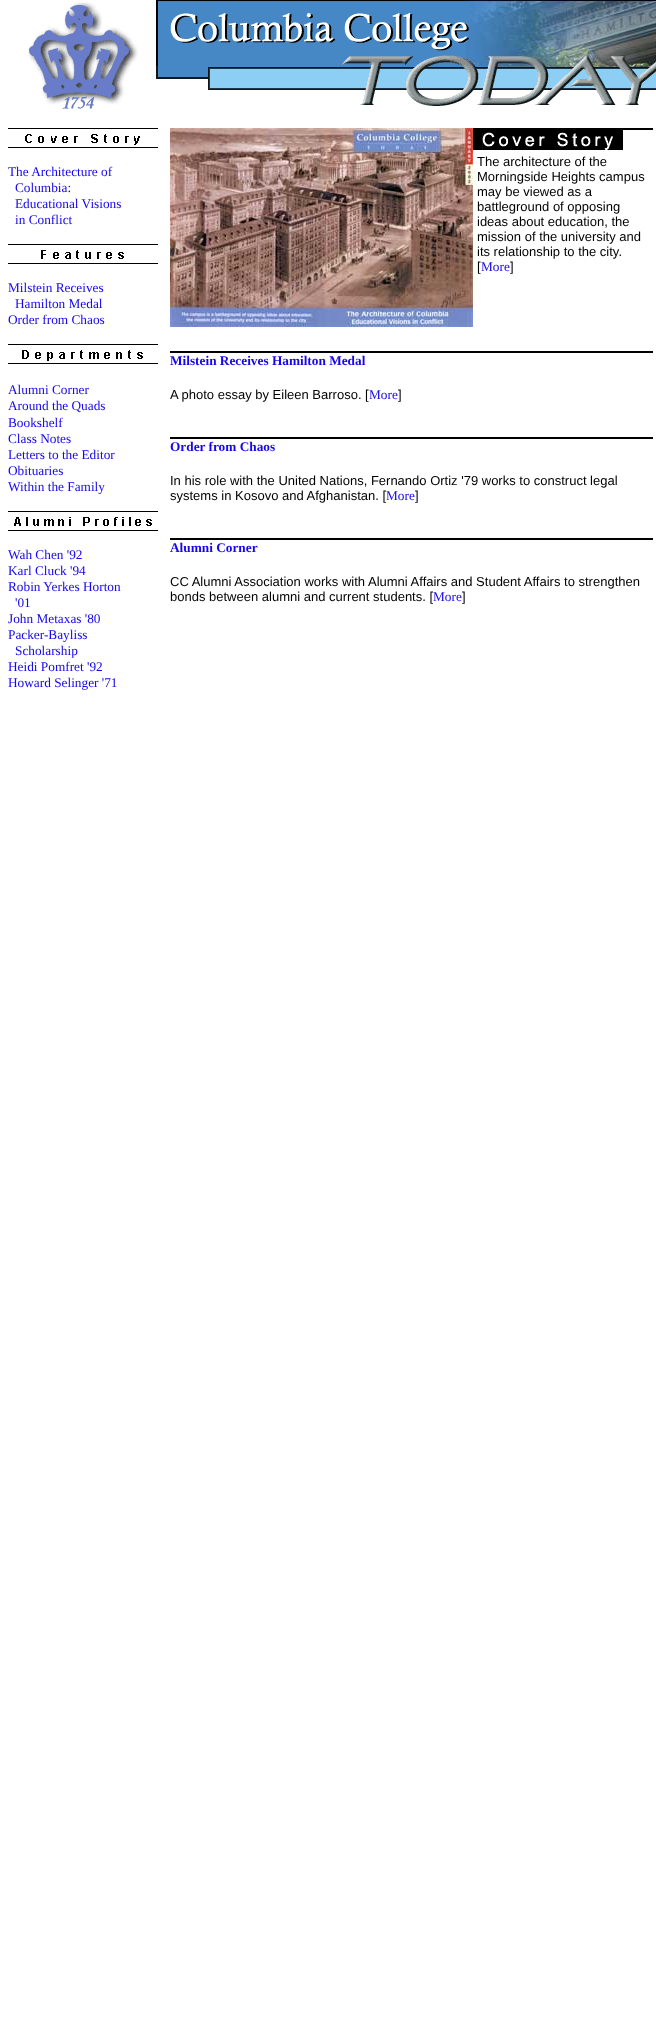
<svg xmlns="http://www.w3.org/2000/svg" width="656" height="2032">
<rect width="100%" height="100%" fill="#fff"/>
<image x="28" y="2" width="110" height="107" href="media/1.png"/>
<image x="156" y="0" width="314" height="66" href="media/2.png"/>
<image x="470" y="0" width="186" height="66" href="media/3.png"/>
<image x="156" y="66" width="500" height="40" href="media/4.png"/>
<image x="8" y="128" width="150" height="20" href="media/5.png"/>
<text x="8" y="176" style="font-family:Liberation Serif;font-size:13.3px;fill:#1605ed">The Architecture of</text>
<text x="15" y="192" style="font-family:Liberation Serif;font-size:13.3px;fill:#1605ed">Columbia:</text>
<text x="15" y="208" style="font-family:Liberation Serif;font-size:13.3px;fill:#1605ed">Educational Visions</text>
<text x="15" y="224" style="font-family:Liberation Serif;font-size:13.3px;fill:#1605ed">in Conflict</text>
<image x="8" y="244" width="150" height="20" href="media/6.png"/>
<text x="8" y="292" style="font-family:Liberation Serif;font-size:13.3px;fill:#1605ed">Milstein Receives</text>
<text x="15" y="308" style="font-family:Liberation Serif;font-size:13.3px;fill:#1605ed">Hamilton Medal</text>
<text x="8" y="324" style="font-family:Liberation Serif;font-size:13.3px;fill:#1605ed">Order from Chaos</text>
<image x="8" y="344" width="150" height="20" href="media/7.png"/>
<text x="8" y="394" style="font-family:Liberation Serif;font-size:13.3px;fill:#1605ed">Alumni Corner</text>
<text x="8" y="410" style="font-family:Liberation Serif;font-size:13.3px;fill:#1605ed">Around the Quads</text>
<text x="8" y="427" style="font-family:Liberation Serif;font-size:13.3px;fill:#1605ed">Bookshelf</text>
<text x="8" y="443" style="font-family:Liberation Serif;font-size:13.3px;fill:#1605ed">Class Notes</text>
<text x="8" y="459" style="font-family:Liberation Serif;font-size:13.3px;fill:#1605ed">Letters to the Editor</text>
<text x="8" y="475" style="font-family:Liberation Serif;font-size:13.3px;fill:#1605ed">Obituaries</text>
<text x="8" y="491" style="font-family:Liberation Serif;font-size:13.3px;fill:#1605ed">Within the Family</text>
<image x="8" y="511" width="150" height="20" href="media/8.png"/>
<text x="8" y="559" style="font-family:Liberation Serif;font-size:13.3px;fill:#1605ed">Wah Chen '92</text>
<text x="8" y="575" style="font-family:Liberation Serif;font-size:13.3px;fill:#1605ed">Karl Cluck '94</text>
<text x="8" y="591" style="font-family:Liberation Serif;font-size:13.3px;fill:#1605ed">Robin Yerkes Horton</text>
<text x="15" y="607" style="font-family:Liberation Serif;font-size:13.3px;fill:#1605ed">'01</text>
<text x="8" y="623" style="font-family:Liberation Serif;font-size:13.3px;fill:#1605ed">John Metaxas '80</text>
<text x="8" y="639" style="font-family:Liberation Serif;font-size:13.3px;fill:#1605ed">Packer-Bayliss</text>
<text x="15" y="655" style="font-family:Liberation Serif;font-size:13.3px;fill:#1605ed">Scholarship</text>
<text x="8" y="671" style="font-family:Liberation Serif;font-size:13.3px;fill:#1605ed">Heidi Pomfret '92</text>
<text x="8" y="687" style="font-family:Liberation Serif;font-size:13.3px;fill:#1605ed">Howard Selinger '71</text>
<image x="170" y="128" width="303" height="199" href="media/9.png"/>
<rect x="473" y="128" width="180" height="2" fill="#000"/>
<image x="473" y="130" width="150" height="20" href="media/10.png"/>
<text x="477" y="166" style="font-family:Liberation Sans;font-size:13px;fill:#000">The architecture of the</text>
<text x="477" y="181" style="font-family:Liberation Sans;font-size:13px;fill:#000">Morningside Heights campus</text>
<text x="477" y="196" style="font-family:Liberation Sans;font-size:13px;fill:#000">may be viewed as a</text>
<text x="477" y="211" style="font-family:Liberation Sans;font-size:13px;fill:#000">battleground of opposing</text>
<text x="477" y="226" style="font-family:Liberation Sans;font-size:13px;fill:#000">ideas about education, the</text>
<text x="477" y="241" style="font-family:Liberation Sans;font-size:13px;fill:#000">mission of the university and</text>
<text x="477" y="256" style="font-family:Liberation Sans;font-size:13px;fill:#000">its relationship to the city.</text>
<text x="477" y="271" style="font-family:Liberation Sans;font-size:13px;fill:#000">[</text>
<text x="481" y="271" style="font-family:Liberation Serif;font-size:13.3px;fill:#1605ed">More</text>
<text x="510" y="271" style="font-family:Liberation Sans;font-size:13px;fill:#000">]</text>
<rect x="170" y="351" width="483" height="2" fill="#000"/>
<text x="170" y="365" style="font-family:Liberation Serif;font-size:13.3px;font-weight:bold;fill:#1605ed">Milstein Receives Hamilton Medal</text>
<text x="170" y="399" style="font-family:Liberation Sans;font-size:13px;fill:#000">A photo essay by Eileen Barroso. [</text>
<text x="369" y="399" style="font-family:Liberation Serif;font-size:13.3px;fill:#1605ed">More</text>
<text x="398" y="399" style="font-family:Liberation Sans;font-size:13px;fill:#000">]</text>
<rect x="170" y="437" width="483" height="2" fill="#000"/>
<text x="170" y="451" style="font-family:Liberation Serif;font-size:13.3px;font-weight:bold;fill:#1605ed">Order from Chaos</text>
<text x="170" y="485" style="font-family:Liberation Sans;font-size:13px;fill:#000">In his role with the United Nations, Fernando Ortiz '79 works to construct legal</text>
<text x="170" y="500" style="font-family:Liberation Sans;font-size:13px;fill:#000">systems in Kosovo and Afghanistan. [</text>
<text x="386" y="500" style="font-family:Liberation Serif;font-size:13.3px;fill:#1605ed">More</text>
<text x="415" y="500" style="font-family:Liberation Sans;font-size:13px;fill:#000">]</text>
<rect x="170" y="538" width="483" height="2" fill="#000"/>
<text x="170" y="552" style="font-family:Liberation Serif;font-size:13.3px;font-weight:bold;fill:#1605ed">Alumni Corner</text>
<text x="170" y="586" style="font-family:Liberation Sans;font-size:13px;fill:#000">CC Alumni Association works with Alumni Affairs and Student Affairs to strengthen</text>
<text x="170" y="601" style="font-family:Liberation Sans;font-size:13px;fill:#000">bonds between alumni and current students. [</text>
<text x="433" y="601" style="font-family:Liberation Serif;font-size:13.3px;fill:#1605ed">More</text>
<text x="462" y="601" style="font-family:Liberation Sans;font-size:13px;fill:#000">]</text>
</svg>
